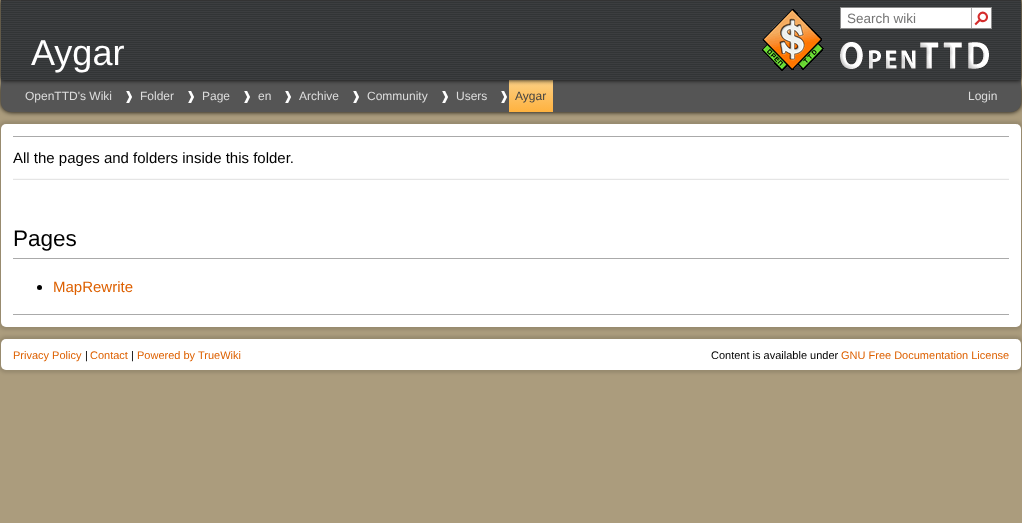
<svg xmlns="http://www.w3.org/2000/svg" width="1022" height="523">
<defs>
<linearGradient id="g1" gradientUnits="userSpaceOnUse" x1="531" y1="80" x2="531" y2="112"><stop offset="0" stop-color="#fcd085"/><stop offset="1" stop-color="#ffb23f"/></linearGradient>
</defs>
<rect width="100%" height="100%" fill="#ab9c7d"/>
<rect x="1" y="80" width="1020" height="32" rx="10" fill="#000" filter="blur(2.5px)"/>
<path d="M1 80h1020v22c0 5.5-4.5 10-10 10h-1000c-5.5 0-10-4.5-10-10z" fill="#555"/>
<rect x="509" y="80" width="44" height="32" fill="url(#g1)"/>
<rect x="1" width="1020" height="80" fill="#000" filter="blur(2.5px)"/>
<image x="1" y="1" width="1020" height="79" href="media/1.png"/>
<rect x="840.5" y="7.5" width="151" height="21" fill="#fff" stroke="#8d8d8d"/>
<text x="847" y="23" style="font-family:Liberation Sans;font-size:13.5px;fill:#757575">Search wiki</text>
<rect x="971" y="8" width="1" height="20" fill="#aaa"/>
<text x="972" y="18" transform="rotate(45 972 18)" style="font-family:DejaVu Sans;font-size:18px;font-weight:bold;fill:#d52d2d">⚲</text>
<rect x="1" width="1020" height="1" fill="#333"/>
<text x="31" y="65" style="font-family:Liberation Sans;font-size:36px;fill:#fff">Aygar</text>
<image x="762" y="8" width="62" height="63" href="media/2.png"/>
<image x="840" y="42" width="149" height="27" href="media/3.png"/>
<text x="25" y="100" style="font-family:Liberation Sans;font-size:12px;fill:#ddd">OpenTTD's Wiki</text>
<text x="124" y="100" style="font-family:DejaVu Sans;font-size:12px;fill:#fff">❱</text>
<text x="140" y="100" style="font-family:Liberation Sans;font-size:12px;fill:#ddd">Folder</text>
<text x="186" y="100" style="font-family:DejaVu Sans;font-size:12px;fill:#fff">❱</text>
<text x="202" y="100" style="font-family:Liberation Sans;font-size:12px;fill:#ddd">Page</text>
<text x="242" y="100" style="font-family:DejaVu Sans;font-size:12px;fill:#fff">❱</text>
<text x="258" y="100" style="font-family:Liberation Sans;font-size:12px;fill:#ddd">en</text>
<text x="283" y="100" style="font-family:DejaVu Sans;font-size:12px;fill:#fff">❱</text>
<text x="299" y="100" style="font-family:Liberation Sans;font-size:12px;fill:#ddd">Archive</text>
<text x="351" y="100" style="font-family:DejaVu Sans;font-size:12px;fill:#fff">❱</text>
<text x="367" y="100" style="font-family:Liberation Sans;font-size:12px;fill:#ddd">Community</text>
<text x="440" y="100" style="font-family:DejaVu Sans;font-size:12px;fill:#fff">❱</text>
<text x="456" y="100" style="font-family:Liberation Sans;font-size:12px;fill:#ddd">Users</text>
<text x="499" y="100" style="font-family:DejaVu Sans;font-size:12px;fill:#fff">❱</text>
<text x="515" y="100" style="font-family:Liberation Sans;font-size:12px;fill:#444">Aygar</text>
<text x="968" y="100" style="font-family:Liberation Sans;font-size:12px;fill:#ddd">Login</text>
<rect x="-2" y="121" width="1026" height="209" rx="8" fill="#0000001c" filter="blur(1.5px)"/>
<rect x="1" y="124" width="1020" height="203" rx="5" fill="#fff"/>
<rect x="13" y="136" width="996" height="1" fill="#aaa"/>
<text x="13" y="163" style="font-family:Liberation Sans;font-size:15px;fill:#000">All the pages and folders inside this folder.</text>
<image x="13" y="178" width="996" height="2" href="media/4.png"/>
<rect x="13" y="258" width="996" height="1" fill="#aaa"/>
<text x="13" y="246" style="font-family:Liberation Sans;font-size:22.5px;fill:#000">Pages</text>
<circle cx="39.5" cy="287.5" r="2.5" fill="#000"/>
<text x="53" y="292" style="font-family:Liberation Sans;font-size:15px;fill:#dd6000">MapRewrite</text>
<rect x="13" y="314" width="996" height="1" fill="#aaa"/>
<rect x="-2" y="336" width="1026" height="37" rx="8" fill="#0000001c" filter="blur(1.5px)"/>
<rect x="1" y="339" width="1020" height="31" rx="5" fill="#fff"/>
<text x="13" y="359" style="font-family:Liberation Sans;font-size:11px;fill:#dd6000">Privacy Policy</text>
<text x="85" y="359" style="font-family:Liberation Sans;font-size:11px;fill:#000">|</text>
<text x="90" y="359" style="font-family:Liberation Sans;font-size:11px;fill:#dd6000">Contact</text>
<text x="131" y="359" style="font-family:Liberation Sans;font-size:11px;fill:#000">|</text>
<text x="137" y="359" style="font-family:Liberation Sans;font-size:11px;fill:#dd6000">Powered by TrueWiki</text>
<text x="711" y="359" style="font-family:Liberation Sans;font-size:11px;fill:#000">Content is available under</text>
<text x="841" y="359" style="font-family:Liberation Sans;font-size:11px;fill:#dd6000">GNU Free Documentation License</text>
</svg>
